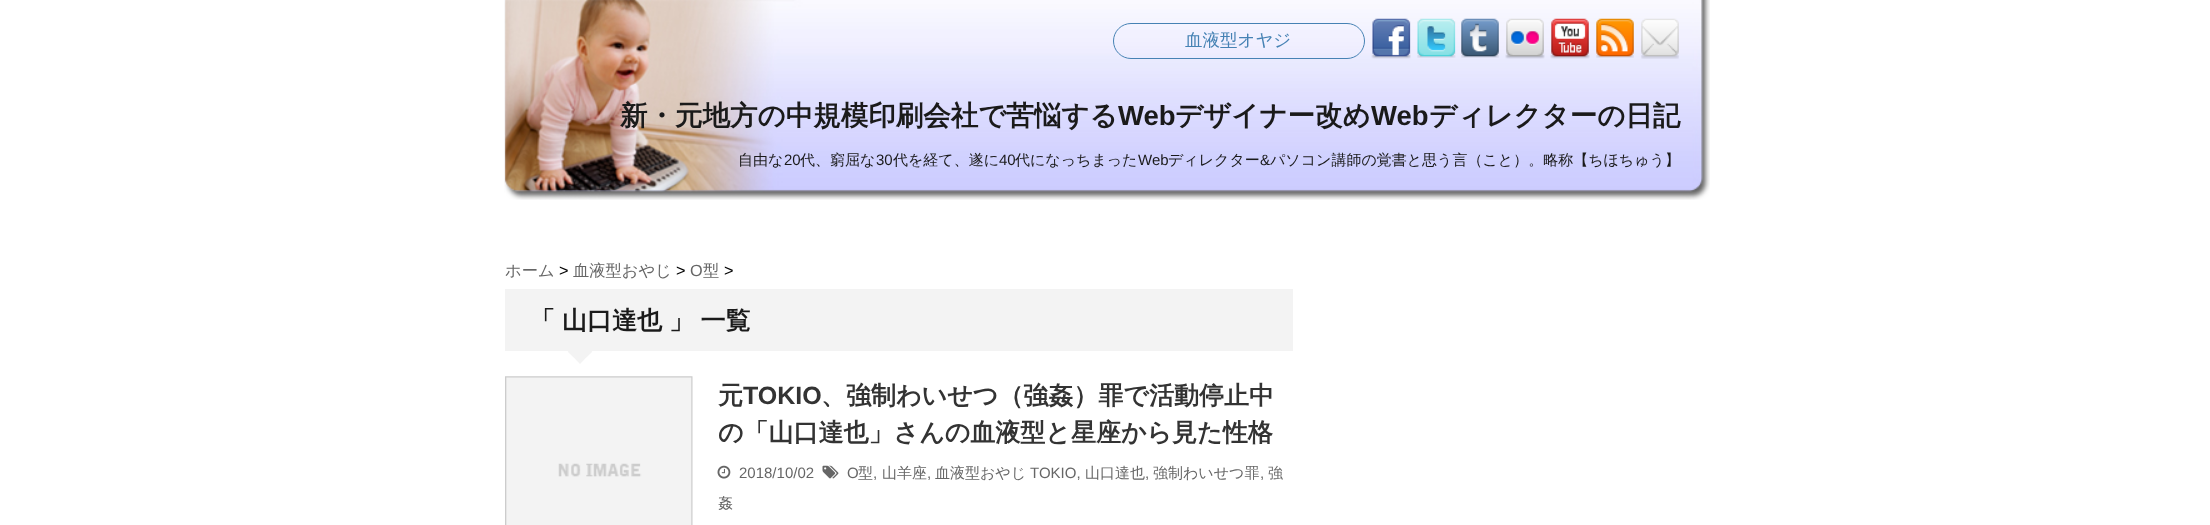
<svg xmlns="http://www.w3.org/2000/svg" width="2210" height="525">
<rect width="100%" height="100%" fill="#fff"/>
<image x="504" y="0" width="1206" height="200" href="media/8.png"/>
<rect x="1113.5" y="23.5" width="251" height="35" rx="17.5" fill="none" stroke="#4682b4"/>
<text x="1185" y="46" style="font-family:WenQuanYi Zen Hei;font-size:17.5px;font-weight:500;fill:#4682b4">血液型オヤジ</text>
<image x="1371" y="18" width="40" height="41" href="media/1.png"/>
<image x="1417" y="18" width="39" height="40" href="media/2.png"/>
<image x="1461" y="18" width="38" height="40" href="media/3.png"/>
<image x="1505" y="18" width="40" height="41" href="media/4.png"/>
<image x="1550" y="18" width="40" height="41" href="media/5.png"/>
<image x="1596" y="18" width="38" height="40" href="media/6.png"/>
<image x="1641" y="18" width="38" height="41" href="media/7.png"/>
<text x="620" y="125" style="font-family:WenQuanYi Zen Hei;font-size:27.5px;font-weight:bold;fill:#1a1a1a">新・元地方の中規模印刷会社で苦悩する</text>
<text x="1118" y="125" style="font-family:Liberation Sans;font-size:27.5px;font-weight:bold;fill:#1a1a1a">Web</text>
<text x="1175" y="125" style="font-family:WenQuanYi Zen Hei;font-size:27.5px;font-weight:bold;fill:#1a1a1a">デザイナー改め</text>
<text x="1371" y="125" style="font-family:Liberation Sans;font-size:27.5px;font-weight:bold;fill:#1a1a1a">Web</text>
<text x="1429" y="125" style="font-family:WenQuanYi Zen Hei;font-size:27.5px;font-weight:bold;fill:#1a1a1a">ディレクターの日記</text>
<text x="738" y="165" style="font-family:WenQuanYi Zen Hei;font-size:15px;font-weight:500;fill:#1a1a1a">自由な</text>
<text x="784" y="165" style="font-family:Liberation Sans;font-size:15px;fill:#1a1a1a">20</text>
<text x="800" y="165" style="font-family:WenQuanYi Zen Hei;font-size:15px;font-weight:500;fill:#1a1a1a">代、窮屈な</text>
<text x="876" y="165" style="font-family:Liberation Sans;font-size:15px;fill:#1a1a1a">30</text>
<text x="893" y="165" style="font-family:WenQuanYi Zen Hei;font-size:15px;font-weight:500;fill:#1a1a1a">代を経て、遂に</text>
<text x="999" y="165" style="font-family:Liberation Sans;font-size:15px;fill:#1a1a1a">40</text>
<text x="1015" y="165" style="font-family:WenQuanYi Zen Hei;font-size:15px;font-weight:500;fill:#1a1a1a">代になっちまった</text>
<text x="1138" y="165" style="font-family:Liberation Sans;font-size:15px;fill:#1a1a1a">Web</text>
<text x="1168" y="165" style="font-family:WenQuanYi Zen Hei;font-size:15px;font-weight:500;fill:#1a1a1a">ディレクター</text>
<text x="1260" y="165" style="font-family:Liberation Sans;font-size:15px;fill:#1a1a1a">&amp;</text>
<text x="1270" y="165" style="font-family:WenQuanYi Zen Hei;font-size:15px;font-weight:500;fill:#1a1a1a">パソコン講師の覚書と思う言（こと）。略称【ちほちゅう】</text>
<text x="505" y="276" style="font-family:WenQuanYi Zen Hei;font-size:16.25px;font-weight:500;fill:#666">ホーム</text>
<text x="559" y="276" style="font-family:Liberation Sans;font-size:16.25px;fill:#000">&gt;</text>
<text x="573" y="276" style="font-family:WenQuanYi Zen Hei;font-size:16.25px;font-weight:500;fill:#666">血液型おやじ</text>
<text x="676" y="276" style="font-family:Liberation Sans;font-size:16.25px;fill:#000">&gt;</text>
<text x="690" y="276" style="font-family:Liberation Sans;font-size:16.25px;fill:#666">O</text>
<text x="703" y="276" style="font-family:WenQuanYi Zen Hei;font-size:16.25px;font-weight:500;fill:#666">型</text>
<text x="724" y="276" style="font-family:Liberation Sans;font-size:16.25px;fill:#000">&gt;</text>
<rect x="505" y="289" width="788" height="62" fill="#f3f3f3"/>
<text x="530" y="329" style="font-family:WenQuanYi Zen Hei;font-size:25px;font-weight:bold;fill:#1a1a1a">「</text>
<text x="562" y="329" style="font-family:WenQuanYi Zen Hei;font-size:25px;font-weight:bold;fill:#1a1a1a">山口達也</text>
<text x="669" y="329" word-spacing="-1" style="font-family:WenQuanYi Zen Hei;font-size:25px;font-weight:bold;fill:#1a1a1a">」 一覧</text>
<path d="M567.5 351h25l-12.5 13z" fill="#f3f3f3"/>
<path d="M568 352l1-1h22l1 1l-6 5.5h-12z" fill="#f3f3f3"/>
<image x="505" y="376" width="188" height="149" href="media/9.png"/>
<text x="718" y="404" style="font-family:WenQuanYi Zen Hei;font-size:25px;font-weight:bold;fill:#333">元</text>
<text x="743" y="404" style="font-family:Liberation Sans;font-size:25px;font-weight:bold;fill:#333">TOKIO</text>
<text x="821" y="404" style="font-family:WenQuanYi Zen Hei;font-size:25px;font-weight:bold;fill:#333">、強制わいせつ（強姦）罪で活動停止中</text>
<text x="718" y="441" style="font-family:WenQuanYi Zen Hei;font-size:25px;font-weight:bold;fill:#333">の「山口達也」さんの血液型と星座から見た性格</text>
<image x="717" y="465" width="14" height="14" href="media/10.png"/>
<image x="822" y="465" width="17" height="14" href="media/11.png"/>
<text x="847" y="478" style="font-family:Liberation Sans;font-size:15px;fill:#666">O</text>
<text x="858" y="478" style="font-family:WenQuanYi Zen Hei;font-size:15px;font-weight:500;fill:#666">型</text>
<text x="873" y="478" style="font-family:Liberation Sans;font-size:15px;fill:#666">,</text>
<text x="882" y="478" style="font-family:WenQuanYi Zen Hei;font-size:15px;font-weight:500;fill:#666">山羊座</text>
<text x="927" y="478" style="font-family:Liberation Sans;font-size:15px;fill:#666">,</text>
<text x="935" y="478" style="font-family:WenQuanYi Zen Hei;font-size:15px;font-weight:500;fill:#666">血液型おやじ</text>
<text x="1030" y="478" style="font-family:Liberation Sans;font-size:15px;fill:#666">TOKIO,</text>
<text x="1085" y="478" style="font-family:WenQuanYi Zen Hei;font-size:15px;font-weight:500;fill:#666">山口達也</text>
<text x="1145" y="478" style="font-family:Liberation Sans;font-size:15px;fill:#666">,</text>
<text x="1153" y="478" style="font-family:WenQuanYi Zen Hei;font-size:15px;font-weight:500;fill:#666">強制わいせつ罪</text>
<text x="1260" y="478" style="font-family:Liberation Sans;font-size:15px;fill:#666">,</text>
<text x="1268" y="478" style="font-family:WenQuanYi Zen Hei;font-size:15px;font-weight:500;fill:#666">強</text>
<text x="718" y="508" style="font-family:WenQuanYi Zen Hei;font-size:15px;font-weight:500;fill:#666">姦</text>
<text x="739" y="478" style="font-family:Liberation Sans;font-size:15px;fill:#666">2018/10/02</text>
</svg>
